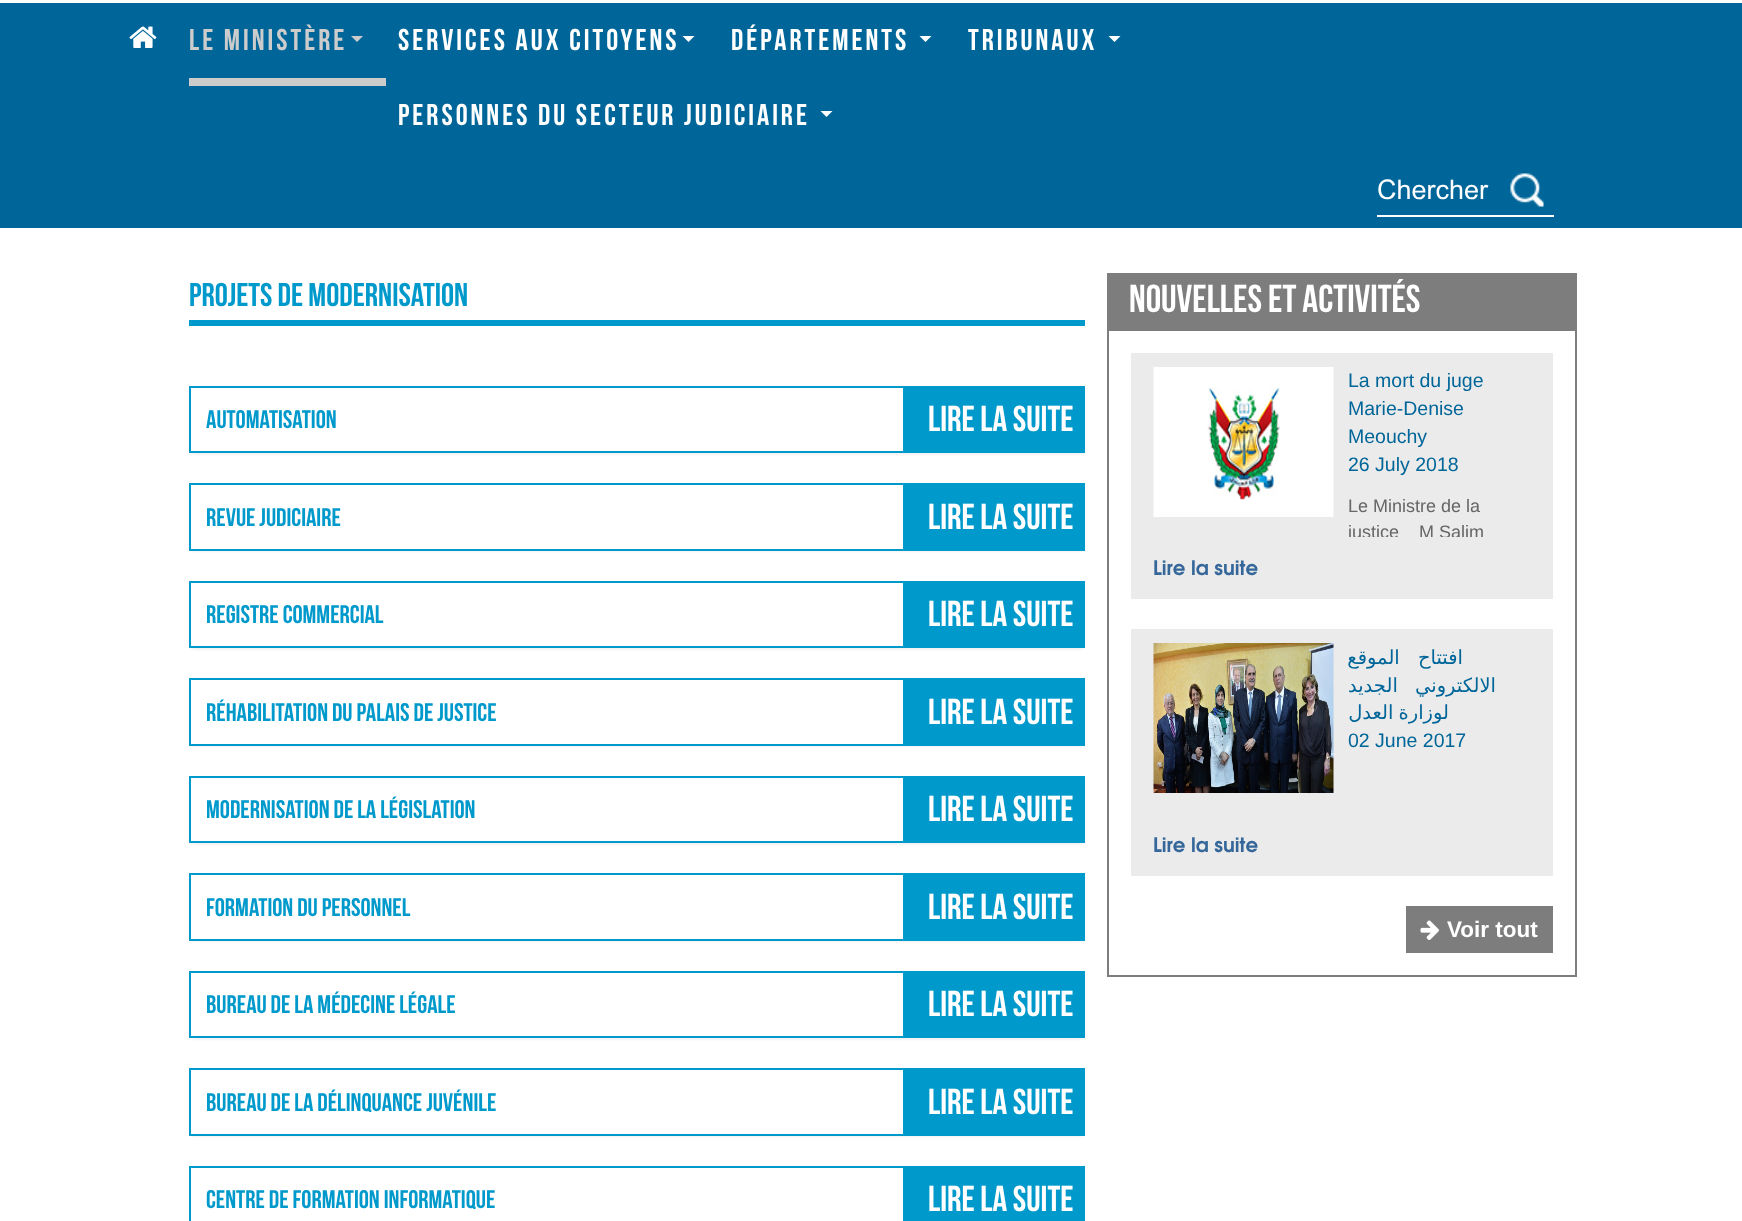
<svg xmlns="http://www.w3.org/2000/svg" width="1742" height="1221">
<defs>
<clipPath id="clip1"><rect x="1349" y="494" width="181" height="43"/></clipPath>
</defs>
<rect width="100%" height="100%" fill="#fff"/>
<rect y="3" width="1742" height="225" fill="#069"/>
<image x="129" y="26" width="28" height="22" href="media/1.png"/>
<rect x="189" y="78" width="197" height="8" fill="#ccc"/>
<text x="189" y="50" style="font-family:Bebas Neue;font-size:30px;letter-spacing:3px;fill:#ccc">Le ministère</text>
<path d="M351 36h12l-6 6z" fill="#ccc"/>
<text x="398" y="50" style="font-family:Bebas Neue;font-size:30px;letter-spacing:3px;fill:#fff">SERVICES AUX CITOYENS</text>
<path d="M682.5 36h12l-6 6z" fill="#fff"/>
<text x="731" y="50" style="font-family:Bebas Neue;font-size:30px;letter-spacing:3px;fill:#fff">DÉPARTEMENTS</text>
<path d="M919.5 36h12l-6 6z" fill="#fff"/>
<text x="968" y="50" style="font-family:Bebas Neue;font-size:30px;letter-spacing:3px;fill:#fff">TRIBUNAUX</text>
<path d="M1108.5 36h12l-6 6z" fill="#fff"/>
<text x="398" y="125" style="font-family:Bebas Neue;font-size:30px;letter-spacing:3px;fill:#fff">Personnes du Secteur Judiciaire</text>
<path d="M820.5 111h12l-6 6z" fill="#fff"/>
<rect x="1377" y="215" width="177" height="2" fill="#fff"/>
<text x="1377" y="199" style="font-family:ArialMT;font-size:27px;fill:#fff">Chercher</text>
<image x="1510" y="173" width="34" height="34" href="media/2.png"/>
<text x="189" y="306" style="font-family:Bebas Neue;font-size:33px;fill:#09c">Projets de Modernisation</text>
<rect x="189" y="320" width="896" height="6" fill="#09c"/>
<rect x="189" y="387" width="896" height="68" rx="6" fill="#0000000d" filter="blur(1px)"/>
<rect x="191" y="388" width="712" height="63" fill="#fff"/>
<rect x="190" y="387" width="894" height="65" fill="none" stroke="#09c" stroke-width="2"/>
<text x="206" y="428" style="font-family:Bebas Neue;font-size:25.5px;fill:#09c">Automatisation</text>
<rect x="903" y="388" width="180" height="63" fill="#09c"/>
<text x="928" y="431" style="font-family:Bebas Neue;font-size:36px;fill:#fff">Lire la suite</text>
<rect x="189" y="485" width="896" height="67" rx="6" fill="#0000000d" filter="blur(1px)"/>
<rect x="191" y="485" width="712" height="64" fill="#fff"/>
<rect x="190" y="484" width="894" height="66" fill="none" stroke="#09c" stroke-width="2"/>
<text x="206" y="526" style="font-family:Bebas Neue;font-size:25.5px;fill:#09c">Revue Judiciaire</text>
<rect x="903" y="485" width="180" height="64" fill="#09c"/>
<text x="928" y="529" style="font-family:Bebas Neue;font-size:36px;fill:#fff">Lire la suite</text>
<rect x="189" y="582" width="896" height="68" rx="6" fill="#0000000d" filter="blur(1px)"/>
<rect x="191" y="583" width="712" height="63" fill="#fff"/>
<rect x="190" y="582" width="894" height="65" fill="none" stroke="#09c" stroke-width="2"/>
<text x="206" y="623" style="font-family:Bebas Neue;font-size:25.5px;fill:#09c">Registre Commercial</text>
<rect x="903" y="583" width="180" height="63" fill="#09c"/>
<text x="928" y="626" style="font-family:Bebas Neue;font-size:36px;fill:#fff">Lire la suite</text>
<rect x="189" y="680" width="896" height="67" rx="6" fill="#0000000d" filter="blur(1px)"/>
<rect x="191" y="680" width="712" height="64" fill="#fff"/>
<rect x="190" y="679" width="894" height="66" fill="none" stroke="#09c" stroke-width="2"/>
<text x="206" y="721" style="font-family:Bebas Neue;font-size:25.5px;fill:#09c">Réhabilitation du Palais de Justice</text>
<rect x="903" y="680" width="180" height="64" fill="#09c"/>
<text x="928" y="724" style="font-family:Bebas Neue;font-size:36px;fill:#fff">Lire la suite</text>
<rect x="189" y="777" width="896" height="68" rx="6" fill="#0000000d" filter="blur(1px)"/>
<rect x="191" y="778" width="712" height="63" fill="#fff"/>
<rect x="190" y="777" width="894" height="65" fill="none" stroke="#09c" stroke-width="2"/>
<text x="206" y="818" style="font-family:Bebas Neue;font-size:25.5px;fill:#09c">Modernisation de la législation</text>
<rect x="903" y="778" width="180" height="63" fill="#09c"/>
<text x="928" y="821" style="font-family:Bebas Neue;font-size:36px;fill:#fff">Lire la suite</text>
<rect x="189" y="875" width="896" height="67" rx="6" fill="#0000000d" filter="blur(1px)"/>
<rect x="191" y="875" width="712" height="64" fill="#fff"/>
<rect x="190" y="874" width="894" height="66" fill="none" stroke="#09c" stroke-width="2"/>
<text x="206" y="916" style="font-family:Bebas Neue;font-size:25.5px;fill:#09c">Formation du personnel</text>
<rect x="903" y="875" width="180" height="64" fill="#09c"/>
<text x="928" y="919" style="font-family:Bebas Neue;font-size:36px;fill:#fff">Lire la suite</text>
<rect x="189" y="972" width="896" height="68" rx="6" fill="#0000000d" filter="blur(1px)"/>
<rect x="191" y="973" width="712" height="63" fill="#fff"/>
<rect x="190" y="972" width="894" height="65" fill="none" stroke="#09c" stroke-width="2"/>
<text x="206" y="1013" style="font-family:Bebas Neue;font-size:25.5px;fill:#09c">Bureau de la médecine légale</text>
<rect x="903" y="973" width="180" height="63" fill="#09c"/>
<text x="928" y="1016" style="font-family:Bebas Neue;font-size:36px;fill:#fff">Lire la suite</text>
<rect x="189" y="1070" width="896" height="67" rx="6" fill="#0000000d" filter="blur(1px)"/>
<rect x="191" y="1070" width="712" height="64" fill="#fff"/>
<rect x="190" y="1069" width="894" height="66" fill="none" stroke="#09c" stroke-width="2"/>
<text x="206" y="1111" style="font-family:Bebas Neue;font-size:25.5px;fill:#09c">Bureau de la délinquance juvénile</text>
<rect x="903" y="1070" width="180" height="64" fill="#09c"/>
<text x="928" y="1114" style="font-family:Bebas Neue;font-size:36px;fill:#fff">Lire la suite</text>
<rect x="190" y="1167" width="894" height="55" fill="none" stroke="#09c" stroke-width="2"/>
<text x="206" y="1208" style="font-family:Bebas Neue;font-size:25.5px;fill:#09c">Centre de formation informatique</text>
<rect x="903" y="1168" width="180" height="53" fill="#09c"/>
<text x="928" y="1211" style="font-family:Bebas Neue;font-size:36px;fill:#fff">Lire la suite</text>
<rect x="1107" y="273" width="470" height="56" fill="#7d7d7d"/>
<text x="1129" y="312" style="font-family:Bebas Neue;font-size:39px;fill:#fff">NOUVELLES ET ACTIVITÉS</text>
<rect x="1108" y="330" width="468" height="646" fill="none" stroke="#7d7d7d" stroke-width="2"/>
<rect x="1131" y="353" width="422" height="246" fill="#ebebeb"/>
<image x="1153" y="367" width="181" height="150" href="media/3.png"/>
<text x="1348" y="387" style="font-family:Liberation Sans;font-size:19.5px;fill:#069">La mort du juge</text>
<text x="1348" y="415" style="font-family:Liberation Sans;font-size:19.5px;fill:#069">Marie-Denise</text>
<text x="1348" y="443" style="font-family:Liberation Sans;font-size:19.5px;fill:#069">Meouchy</text>
<text x="1348" y="471" style="font-family:Liberation Sans;font-size:19.5px;fill:#069">26 July 2018</text>
<text x="1348" y="512" style="font-family:Liberation Sans;font-size:18px;fill:#666">Le Ministre de la</text>
<g clip-path="url(#clip1)">
<text x="1348" y="538" style="font-family:Liberation Sans;font-size:18px;fill:#666" xml:space="preserve">justice    M Salim</text>
</g>
<text x="1153" y="575" style="font-family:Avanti;font-size:21px;font-weight:bold;fill:#35679a">Lire la suite</text>
<rect x="1131" y="629" width="422" height="247" fill="#ebebeb"/>
<image x="1153" y="643" width="181" height="150" href="media/4.png"/>
<text x="1463" y="664" word-spacing="12" style="font-family:DejaVu Sans;font-size:19.5px;direction:rtl;fill:#069">افتتاح الموقع</text>
<text x="1496" y="692" word-spacing="11" style="font-family:DejaVu Sans;font-size:19.5px;direction:rtl;fill:#069">الالكتروني الجديد</text>
<text x="1449" y="719" word-spacing="-1" style="font-family:DejaVu Sans;font-size:19.5px;direction:rtl;fill:#069">لوزارة العدل</text>
<text x="1348" y="747" style="font-family:Liberation Sans;font-size:19.5px;fill:#069">02 June 2017</text>
<text x="1153" y="852" style="font-family:Avanti;font-size:21px;font-weight:bold;fill:#35679a">Lire la suite</text>
<rect x="1406" y="906" width="147" height="47" fill="#7d7d7d"/>
<image x="1420" y="920" width="19" height="20" href="media/5.png"/>
<text x="1447" y="937" style="font-family:Liberation Sans;font-size:22.5px;font-weight:bold;fill:#fff">Voir tout</text>
</svg>
